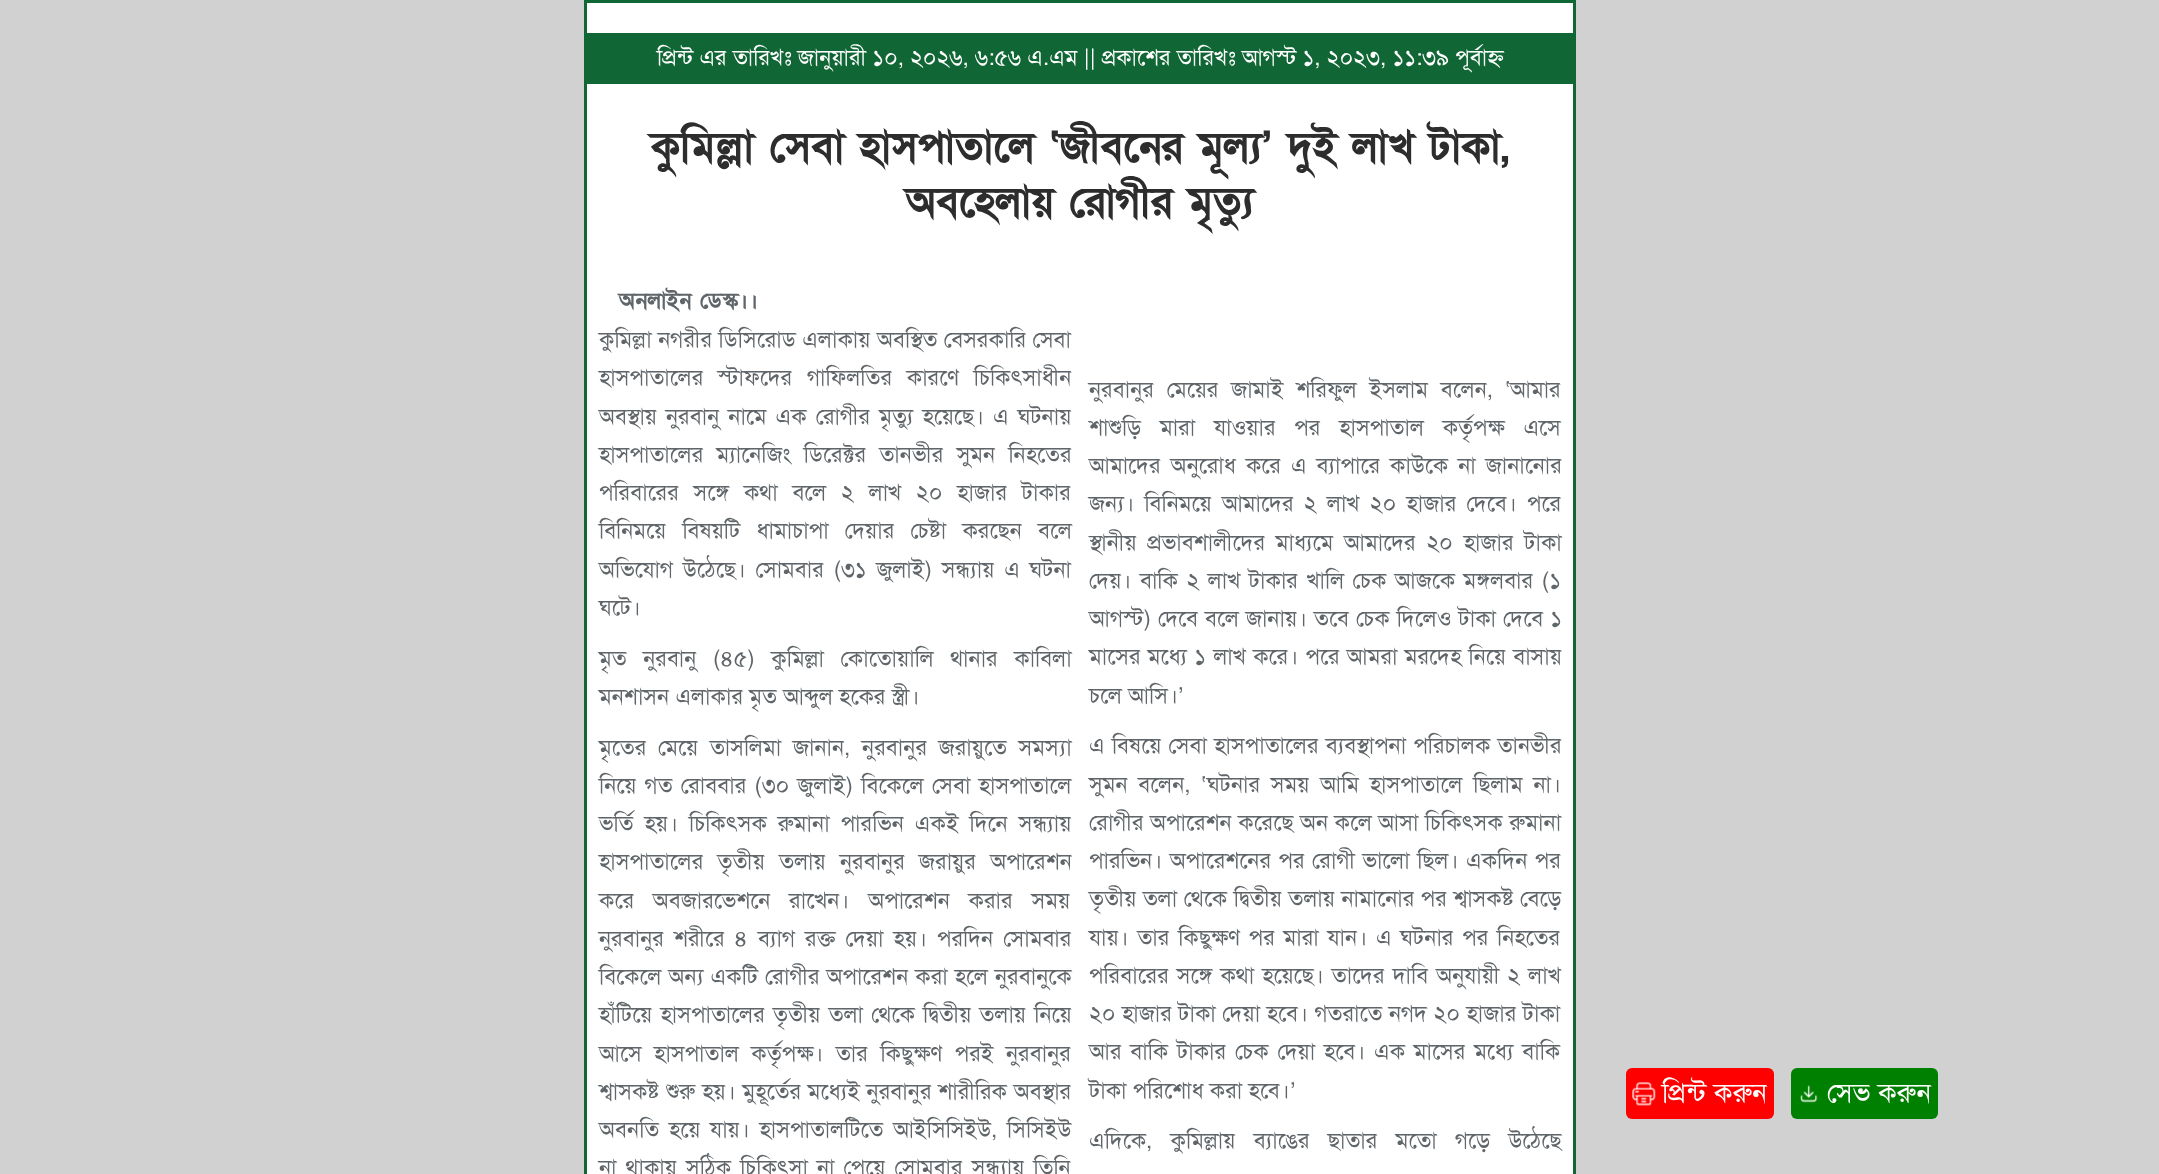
<svg xmlns="http://www.w3.org/2000/svg" width="2159" height="1174">
<rect width="100%" height="100%" fill="#d1d1d1"/>
<rect x="585.5" y="1.5" width="989" height="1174" fill="#fff" stroke="#106634" stroke-width="3"/>
<rect x="587" y="33" width="986" height="51" fill="#106634"/>
<text x="657" y="65" style="font-family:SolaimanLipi;font-size:22.5px;fill:#fff">প্রিন্ট এর তারিখঃ জানুয়ারী ১০, ২০২৬, ৬:৫৬ এ.এম || প্রকাশের তারিখঃ আগস্ট ১, ২০২৩, ১১:৩৯ পূর্বাহ্ণ</text>
<text x="651" y="161" style="font-family:SolaimanLipi;font-size:42.5px;font-weight:bold;fill:#2d2d2d">কুমিল্লা সেবা হাসপাতালে ‘জীবনের মূল্য’ দুই লাখ টাকা,</text>
<text x="906" y="216" style="font-family:SolaimanLipi;font-size:42.5px;font-weight:bold;fill:#2d2d2d">অবহেলায় রোগীর মৃত্যু</text>
<text x="619" y="308" style="font-family:SolaimanLipi;font-size:22.5px;font-weight:bold;fill:#5f6569">অনলাইন ডেস্ক।।</text>
<text x="599" y="347" word-spacing="0.25" style="font-family:SolaimanLipi;font-size:22.5px;fill:#5f6569">কুমিল্লা নগরীর ডিসিরোড এলাকায় অবস্থিত বেসরকারি সেবা</text>
<text x="599" y="385" word-spacing="8.5" style="font-family:SolaimanLipi;font-size:22.5px;fill:#5f6569">হাসপাতালের স্টাফদের গাফিলতির কারণে চিকিৎসাধীন</text>
<text x="599" y="424" word-spacing="2.75" style="font-family:SolaimanLipi;font-size:22.5px;fill:#5f6569">অবস্থায় নুরবানু নামে এক রোগীর মৃত্যু হয়েছে। এ ঘটনায়</text>
<text x="599" y="462" word-spacing="7" style="font-family:SolaimanLipi;font-size:22.5px;fill:#5f6569">হাসপাতালের ম্যানেজিং ডিরেক্টর তানভীর সুমন নিহতের</text>
<text x="599" y="500" word-spacing="8.5" style="font-family:SolaimanLipi;font-size:22.5px;fill:#5f6569">পরিবারের সঙ্গে কথা বলে ২ লাখ ২০ হাজার টাকার</text>
<text x="599" y="538" word-spacing="10" style="font-family:SolaimanLipi;font-size:22.5px;fill:#5f6569">বিনিময়ে বিষয়টি ধামাচাপা দেয়ার চেষ্টা করছেন বলে</text>
<text x="599" y="577" word-spacing="3.5" style="font-family:SolaimanLipi;font-size:22.5px;fill:#5f6569">অভিযোগ উঠেছে। সোমবার (৩১ জুলাই) সন্ধ্যায় এ ঘটনা</text>
<text x="599" y="615" style="font-family:SolaimanLipi;font-size:22.5px;fill:#5f6569">ঘটে।</text>
<text x="1089" y="397" word-spacing="6.5" style="font-family:SolaimanLipi;font-size:22.5px;fill:#5f6569">নুরবানুর মেয়ের জামাই শরিফুল ইসলাম বলেন,</text>
<text x="1505" y="397" style="font-family:'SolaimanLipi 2';font-size:22.5px;fill:#5f6569">‘</text>
<text x="1510" y="397" style="font-family:SolaimanLipi;font-size:22.5px;fill:#5f6569">আমার</text>
<text x="1089" y="435" word-spacing="12.5" style="font-family:SolaimanLipi;font-size:22.5px;fill:#5f6569">শাশুড়ি মারা যাওয়ার পর হাসপাতাল কর্তৃপক্ষ এসে</text>
<text x="1089" y="473" word-spacing="3.75" style="font-family:SolaimanLipi;font-size:22.5px;fill:#5f6569">আমাদের অনুরোধ করে এ ব্যাপারে কাউকে না জানানোর</text>
<text x="1089" y="511" word-spacing="4" style="font-family:SolaimanLipi;font-size:22.5px;fill:#5f6569">জন্য। বিনিময়ে আমাদের ২ লাখ ২০ হাজার দেবে। পরে</text>
<text x="1089" y="550" word-spacing="4.5" style="font-family:SolaimanLipi;font-size:22.5px;fill:#5f6569">স্থানীয় প্রভাবশালীদের মাধ্যমে আমাদের ২০ হাজার টাকা</text>
<text x="1089" y="588" word-spacing="2.25" style="font-family:SolaimanLipi;font-size:22.5px;fill:#5f6569">দেয়। বাকি ২ লাখ টাকার খালি চেক আজকে মঙ্গলবার (১</text>
<text x="1089" y="626" word-spacing="0.75" style="font-family:SolaimanLipi;font-size:22.5px;fill:#5f6569">আগস্ট) দেবে বলে জানায়। তবে চেক দিলেও টাকা দেবে ১</text>
<text x="1089" y="664" word-spacing="1" style="font-family:SolaimanLipi;font-size:22.5px;fill:#5f6569">মাসের মধ্যে ১ লাখ করে। পরে আমরা মরদেহ নিয়ে বাসায়</text>
<text x="1089" y="703" style="font-family:SolaimanLipi;font-size:22.5px;fill:#5f6569">চলে আসি।</text>
<text x="1178" y="703" style="font-family:'SolaimanLipi 2';font-size:22.5px;fill:#5f6569">’</text>
<text x="599" y="666" word-spacing="10.25" style="font-family:SolaimanLipi;font-size:22.5px;fill:#5f6569">মৃত নুরবানু (৪৫) কুমিল্লা কোতোয়ালি থানার কাবিলা</text>
<text x="599" y="704" style="font-family:SolaimanLipi;font-size:22.5px;fill:#5f6569">মনশাসন এলাকার মৃত আব্দুল হকের স্ত্রী।</text>
<text x="599" y="755" word-spacing="5.5" style="font-family:SolaimanLipi;font-size:22.5px;fill:#5f6569">মৃতের মেয়ে তাসলিমা জানান, নুরবানুর জরায়ুতে সমস্যা</text>
<text x="599" y="793" word-spacing="2" style="font-family:SolaimanLipi;font-size:22.5px;fill:#5f6569">নিয়ে গত রোববার (৩০ জুলাই) বিকেলে সেবা হাসপাতালে</text>
<text x="599" y="831" word-spacing="4.75" style="font-family:SolaimanLipi;font-size:22.5px;fill:#5f6569">ভর্তি হয়। চিকিৎসক রুমানা পারভিন একই দিনে সন্ধ্যায়</text>
<text x="599" y="869" word-spacing="8" style="font-family:SolaimanLipi;font-size:22.5px;fill:#5f6569">হাসপাতালের তৃতীয় তলায় নুরবানুর জরায়ুর অপারেশন</text>
<text x="599" y="908" word-spacing="12.5" style="font-family:SolaimanLipi;font-size:22.5px;fill:#5f6569">করে অবজারভেশনে রাখেন। অপারেশন করার সময়</text>
<text x="599" y="946" word-spacing="3.75" style="font-family:SolaimanLipi;font-size:22.5px;fill:#5f6569">নুরবানুর শরীরে ৪ ব্যাগ রক্ত দেয়া হয়। পরদিন সোমবার</text>
<text x="599" y="984" word-spacing="0.75" style="font-family:SolaimanLipi;font-size:22.5px;fill:#5f6569">বিকেলে অন্য একটি রোগীর অপারেশন করা হলে নুরবানুকে</text>
<text x="599" y="1022" word-spacing="2" style="font-family:SolaimanLipi;font-size:22.5px;fill:#5f6569">হাঁটিয়ে হাসপাতালের তৃতীয় তলা থেকে দ্বিতীয় তলায় নিয়ে</text>
<text x="599" y="1061" word-spacing="6.25" style="font-family:SolaimanLipi;font-size:22.5px;fill:#5f6569">আসে হাসপাতাল কর্তৃপক্ষ। তার কিছুক্ষণ পরই নুরবানুর</text>
<text x="599" y="1099" word-spacing="0.5" style="font-family:SolaimanLipi;font-size:22.5px;fill:#5f6569">শ্বাসকষ্ট শুরু হয়। মুহূর্তের মধ্যেই নুরবানুর শারীরিক অবস্থার</text>
<text x="599" y="1137" word-spacing="3.5" style="font-family:SolaimanLipi;font-size:22.5px;fill:#5f6569">অবনতি হয়ে যায়। হাসপাতালটিতে আইসিসিইউ, সিসিইউ</text>
<text x="599" y="1175" word-spacing="2.75" style="font-family:SolaimanLipi;font-size:22.5px;fill:#5f6569">না থাকায় সঠিক চিকিৎসা না পেয়ে সোমবার সন্ধ্যায় তিনি</text>
<text x="1089" y="753" word-spacing="1" style="font-family:SolaimanLipi;font-size:22.5px;fill:#5f6569">এ বিষয়ে সেবা হাসপাতালের ব্যবস্থাপনা পরিচালক তানভীর</text>
<text x="1089" y="792" word-spacing="4.5" style="font-family:SolaimanLipi;font-size:22.5px;fill:#5f6569">সুমন বলেন,</text>
<text x="1201" y="792" style="font-family:'SolaimanLipi 2';font-size:22.5px;fill:#5f6569">‘</text>
<text x="1207" y="792" word-spacing="4.5" style="font-family:SolaimanLipi;font-size:22.5px;fill:#5f6569">ঘটনার সময় আমি হাসপাতালে ছিলাম না।</text>
<text x="1089" y="830" word-spacing="0.25" style="font-family:SolaimanLipi;font-size:22.5px;fill:#5f6569">রোগীর অপারেশন করেছে অন কলে আসা চিকিৎসক রুমানা</text>
<text x="1089" y="868" word-spacing="1.25" style="font-family:SolaimanLipi;font-size:22.5px;fill:#5f6569">পারভিন। অপারেশনের পর রোগী ভালো ছিল। একদিন পর</text>
<text x="1089" y="906" word-spacing="0.25" style="font-family:SolaimanLipi;font-size:22.5px;fill:#5f6569">তৃতীয় তলা থেকে দ্বিতীয় তলায় নামানোর পর শ্বাসকষ্ট বেড়ে</text>
<text x="1089" y="945" word-spacing="2.5" style="font-family:SolaimanLipi;font-size:22.5px;fill:#5f6569">যায়। তার কিছুক্ষণ পর মারা যান। এ ঘটনার পর নিহতের</text>
<text x="1089" y="983" word-spacing="1.75" style="font-family:SolaimanLipi;font-size:22.5px;fill:#5f6569">পরিবারের সঙ্গে কথা হয়েছে। তাদের দাবি অনুযায়ী ২ লাখ</text>
<text x="1089" y="1021" word-spacing="0.25" style="font-family:SolaimanLipi;font-size:22.5px;fill:#5f6569">২০ হাজার টাকা দেয়া হবে। গতরাতে নগদ ২০ হাজার টাকা</text>
<text x="1089" y="1059" word-spacing="2.5" style="font-family:SolaimanLipi;font-size:22.5px;fill:#5f6569">আর বাকি টাকার চেক দেয়া হবে। এক মাসের মধ্যে বাকি</text>
<text x="1089" y="1098" style="font-family:SolaimanLipi;font-size:22.5px;fill:#5f6569">টাকা পরিশোধ করা হবে।</text>
<text x="1290" y="1098" style="font-family:'SolaimanLipi 2';font-size:22.5px;fill:#5f6569">’</text>
<text x="1089" y="1148" word-spacing="12" style="font-family:SolaimanLipi;font-size:22.5px;fill:#5f6569">এদিকে, কুমিল্লায় ব্যাঙের ছাতার মতো গড়ে উঠেছে</text>
<rect x="1626" y="1068" width="148" height="51" rx="6" fill="#f00"/>
<image x="1632" y="1082" width="24" height="24" href="media/1.png"/>
<text x="1662" y="1102" style="font-family:SolaimanLipi;font-size:27.5px;fill:#fff">প্রিন্ট করুন</text>
<rect x="1791" y="1068" width="147" height="51" rx="6" fill="#008000"/>
<image x="1800" y="1085" width="18" height="18" href="media/2.png"/>
<text x="1827" y="1102" style="font-family:SolaimanLipi;font-size:27.5px;fill:#fff">সেভ করুন</text>
</svg>
